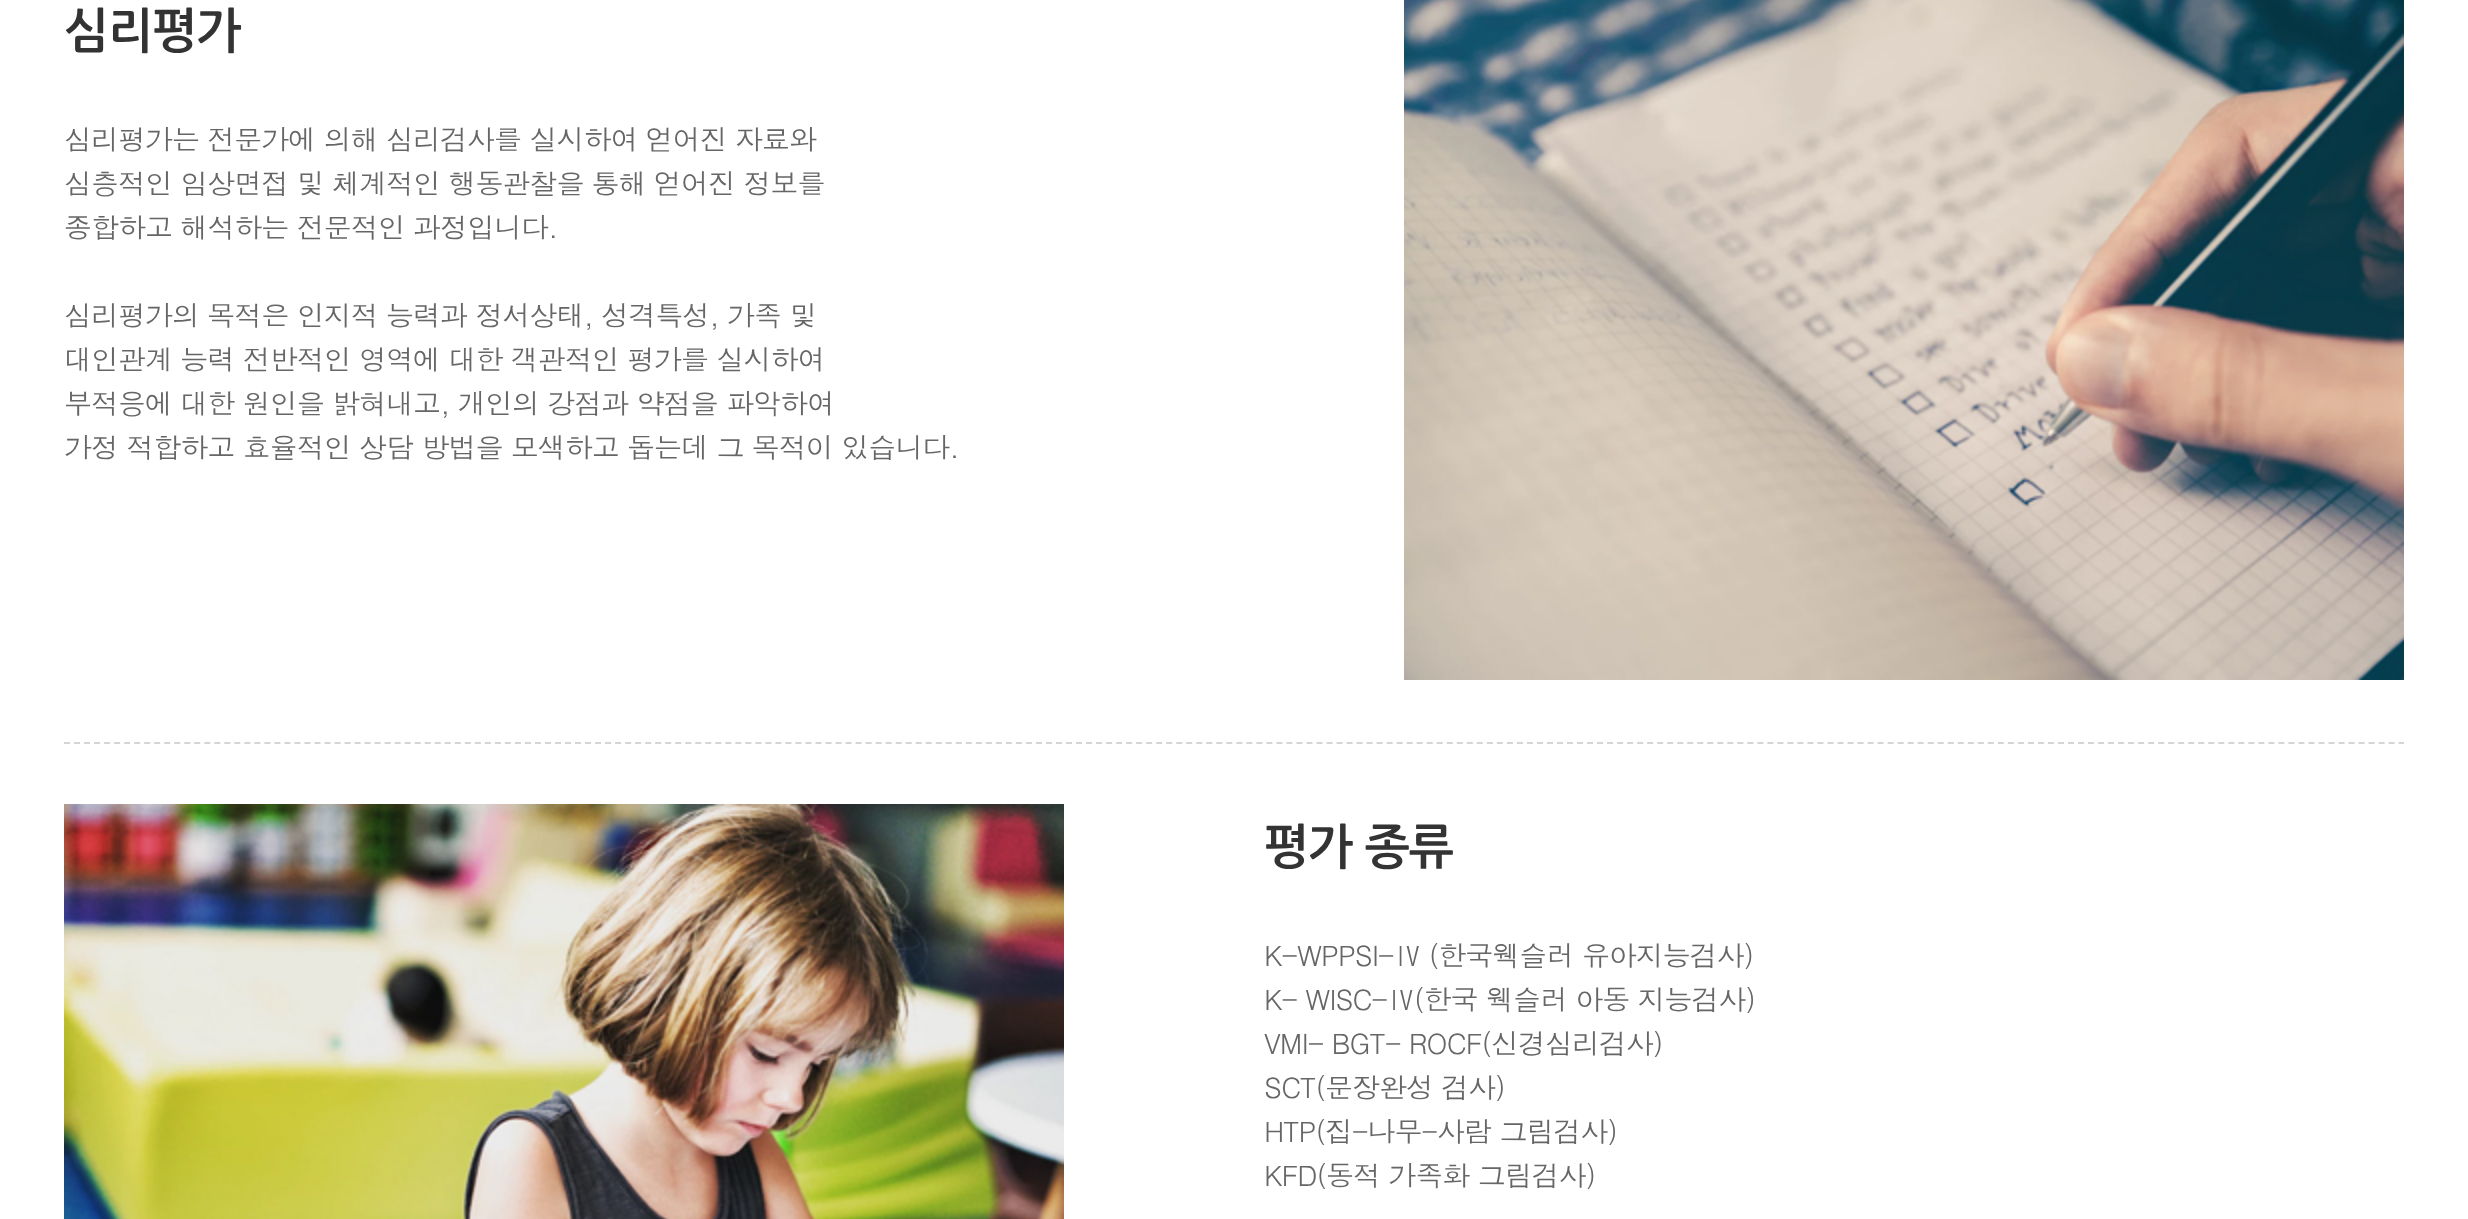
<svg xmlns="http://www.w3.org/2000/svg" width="2468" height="1219">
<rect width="100%" height="100%" fill="#fff"/>
<text x="64" y="48" style="font-family:NanumGothic;font-size:48px;font-weight:bold;letter-spacing:-1px;fill:#333">심리평가</text>
<text x="64" y="150" style="font-family:Dotum;font-size:28px;letter-spacing:-1px;fill:#666">심리평가는 전문가에 의해 심리검사를 실시하여 얻어진 자료와</text>
<text x="64" y="194" style="font-family:Dotum;font-size:28px;letter-spacing:-1px;fill:#666">심층적인 임상면접 및 체계적인 행동관찰을 통해 얻어진 정보를</text>
<text x="64" y="238" style="font-family:Dotum;font-size:28px;letter-spacing:-1px;fill:#666">종합하고 해석하는 전문적인 과정입니다.</text>
<text x="64" y="326" style="font-family:Dotum;font-size:28px;letter-spacing:-1px;fill:#666">심리평가의 목적은 인지적 능력과 정서상태, 성격특성, 가족 및</text>
<text x="64" y="370" style="font-family:Dotum;font-size:28px;letter-spacing:-1px;fill:#666">대인관계 능력 전반적인 영역에 대한 객관적인 평가를 실시하여</text>
<text x="64" y="414" style="font-family:Dotum;font-size:28px;letter-spacing:-1px;fill:#666">부적응에 대한 원인을 밝혀내고, 개인의 강점과 약점을 파악하여</text>
<text x="64" y="458" style="font-family:Dotum;font-size:28px;letter-spacing:-1px;fill:#666">가정 적합하고 효율적인 상담 방법을 모색하고 돕는데 그 목적이 있습니다.</text>
<image x="1404" y="0" width="1000" height="680" href="media/1.png"/>
<path d="M64 743h2340" fill="none" stroke="#d5d5d5" stroke-width="2" stroke-dasharray="6 4.02"/>
<image x="64" y="804" width="1000" height="415" href="media/2.png"/>
<text x="1264" y="864" style="font-family:NanumGothic;font-size:48px;font-weight:bold;letter-spacing:-1px;fill:#333">평가 종류</text>
<text x="1264" y="966" style="font-family:Dotum;font-size:28px;letter-spacing:-1px;fill:#666">K-WPPSI-Ⅳ (한국웩슬러 유아지능검사)</text>
<text x="1264" y="1010" style="font-family:Dotum;font-size:28px;letter-spacing:-1px;fill:#666">K- WISC-Ⅳ(한국 웩슬러 아동 지능검사)</text>
<text x="1264" y="1054" style="font-family:Dotum;font-size:28px;letter-spacing:-1px;fill:#666">VMI- BGT- ROCF(신경심리검사)</text>
<text x="1264" y="1098" style="font-family:Dotum;font-size:28px;letter-spacing:-1px;fill:#666">SCT(문장완성 검사)</text>
<text x="1264" y="1142" style="font-family:Dotum;font-size:28px;letter-spacing:-1px;fill:#666">HTP(집-나무-사람 그림검사)</text>
<text x="1264" y="1186" style="font-family:Dotum;font-size:28px;letter-spacing:-1px;fill:#666">KFD(동적 가족화 그림검사)</text>
</svg>
